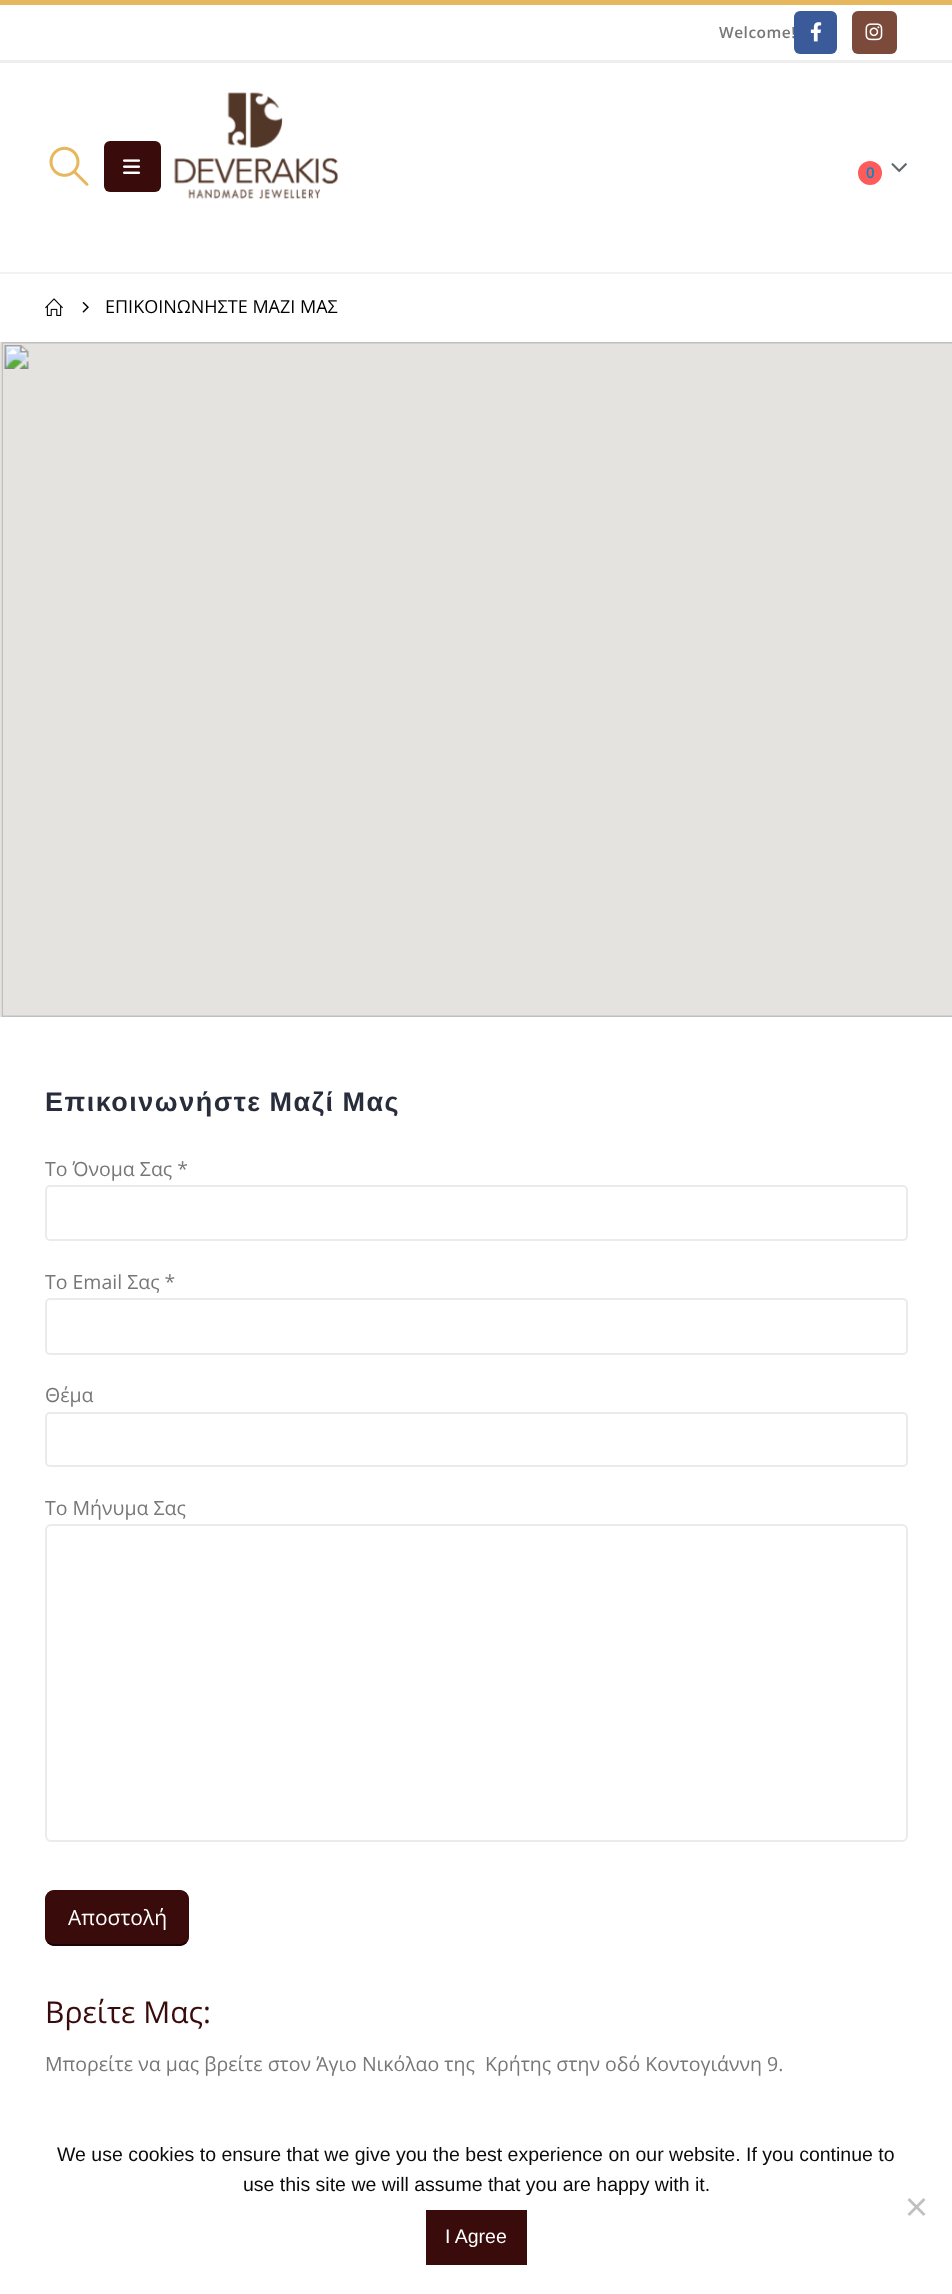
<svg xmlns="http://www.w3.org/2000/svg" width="952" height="2294">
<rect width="100%" height="100%" fill="#fff"/>
<rect width="952" height="5" fill="#e6b75d"/>
<rect y="60" width="952" height="3" fill="#eee"/>
<text x="719" y="38" style="font-family:Open Sans;font-size:15.5px;font-weight:600;letter-spacing:0.5px;fill:#777">Welcome!</text>
<rect x="794" y="11" width="43" height="43" rx="6" fill="#3b5a9a"/>
<image x="810" y="22" width="12" height="20" href="media/1.png"/>
<rect x="852" y="11" width="45" height="43" rx="6" fill="#7c4a3a"/>
<image x="865" y="23" width="18" height="18" href="media/2.png"/>
<image x="49" y="146" width="40" height="40" href="media/3.png"/>
<rect x="104" y="141" width="57" height="51" rx="6" fill="#3a0b0b"/>
<image x="123" y="159" width="17" height="15" href="media/4.png"/>
<image x="174" y="92" width="164" height="107" href="media/5.png"/>
<circle cx="870" cy="173" r="12" fill="#ff5b5b"/>
<text x="866" y="178" style="font-family:Open Sans;font-size:15px;font-weight:600;fill:#08c">0</text>
<image x="891" y="163" width="16" height="10" href="media/6.png"/>
<rect y="272" width="952" height="2" fill="#f3f3f3"/>
<image x="45" y="298" width="18" height="18" href="media/7.png"/>
<image x="82" y="301" width="7" height="12" href="media/8.png"/>
<text x="105" y="313" style="font-family:Open Sans;font-size:18px;fill:#000">ΕΠΙΚΟΙΝΩΝΗΣΤΕ ΜΑΖΙ ΜΑΣ</text>
<image x="0" y="342" width="952" height="675" href="media/9.png"/>
<text x="45" y="1111" word-spacing="-1" style="font-family:Liberation Sans;font-size:27px;font-weight:bold;letter-spacing:1.5px;fill:#282d3b">Επικοινωνήστε Μαζί Μας</text>
<text x="45" y="1176" style="font-family:Open Sans;font-size:19.5px;fill:#777">Το Όνομα Σας *</text>
<rect x="46" y="1186" width="861" height="54" rx="4" fill="none" stroke="#ebebeb" stroke-width="2"/>
<text x="45" y="1289" style="font-family:Open Sans;font-size:19.5px;fill:#777">Το Email Σας *</text>
<rect x="46" y="1299" width="861" height="55" rx="4" fill="none" stroke="#ebebeb" stroke-width="2"/>
<text x="45" y="1402" style="font-family:Open Sans;font-size:19.5px;fill:#777">Θέμα</text>
<rect x="46" y="1413" width="861" height="53" rx="4" fill="none" stroke="#ebebeb" stroke-width="2"/>
<text x="45" y="1515" style="font-family:Open Sans;font-size:19.5px;fill:#777">Το Μήνυμα Σας</text>
<rect x="46" y="1525" width="861" height="316" rx="5" fill="none" stroke="#ebebeb" stroke-width="2"/>
<rect x="45" y="1890" width="144" height="56" rx="9" fill="#3a0b0b"/>
<path d="M186 1942.5c-1.5 1.5-4 2.5-6 2.5h-126c-2 0-4.5-1-6-2.5" fill="none" stroke="#100303" stroke-width="1.5"/>
<path d="M48 1942.5c-3-3.5-2-8-2-12.5v-12c0-30.5-3-27 29-27h84c32 0 29-3.5 29 27v12c0 4.5 1 9-2 12.5" fill="none" stroke="#3a0b0b" stroke-width="1.5"/>
<text x="68" y="1925" style="font-family:Open Sans;font-size:21px;fill:#fff">Αποστολή</text>
<text x="45" y="2023" style="font-family:Open Sans;font-size:30px;fill:#3a0b0b">Βρείτε Μας:</text>
<text x="45" y="2071" style="font-family:Open Sans;font-size:19.5px;fill:#777" xml:space="preserve">Μπορείτε να μας βρείτε στον Άγιο Νικόλαο της  Κρήτης στην οδό Κοντογιάννη 9.</text>
<text x="57" y="2161" style="font-family:Liberation Sans;font-size:19.5px;fill:#0a0a0a">We use cookies to ensure that we give you the best experience on our website. If you continue to</text>
<text x="243" y="2191" style="font-family:Liberation Sans;font-size:19.5px;fill:#0a0a0a">use this site we will assume that you are happy with it.</text>
<path d="M923.5 2198l2 2l-16 16l-2-2z" fill="#c0c0c0"/>
<path d="M907.5 2200l2-2l16 16l-2 2z" fill="#c0c0c0"/>
<rect x="426" y="2210" width="101" height="55" fill="#3a0b0b"/>
<text x="445" y="2243" style="font-family:Liberation Sans;font-size:19.5px;fill:#fff">I Agree</text>
</svg>
